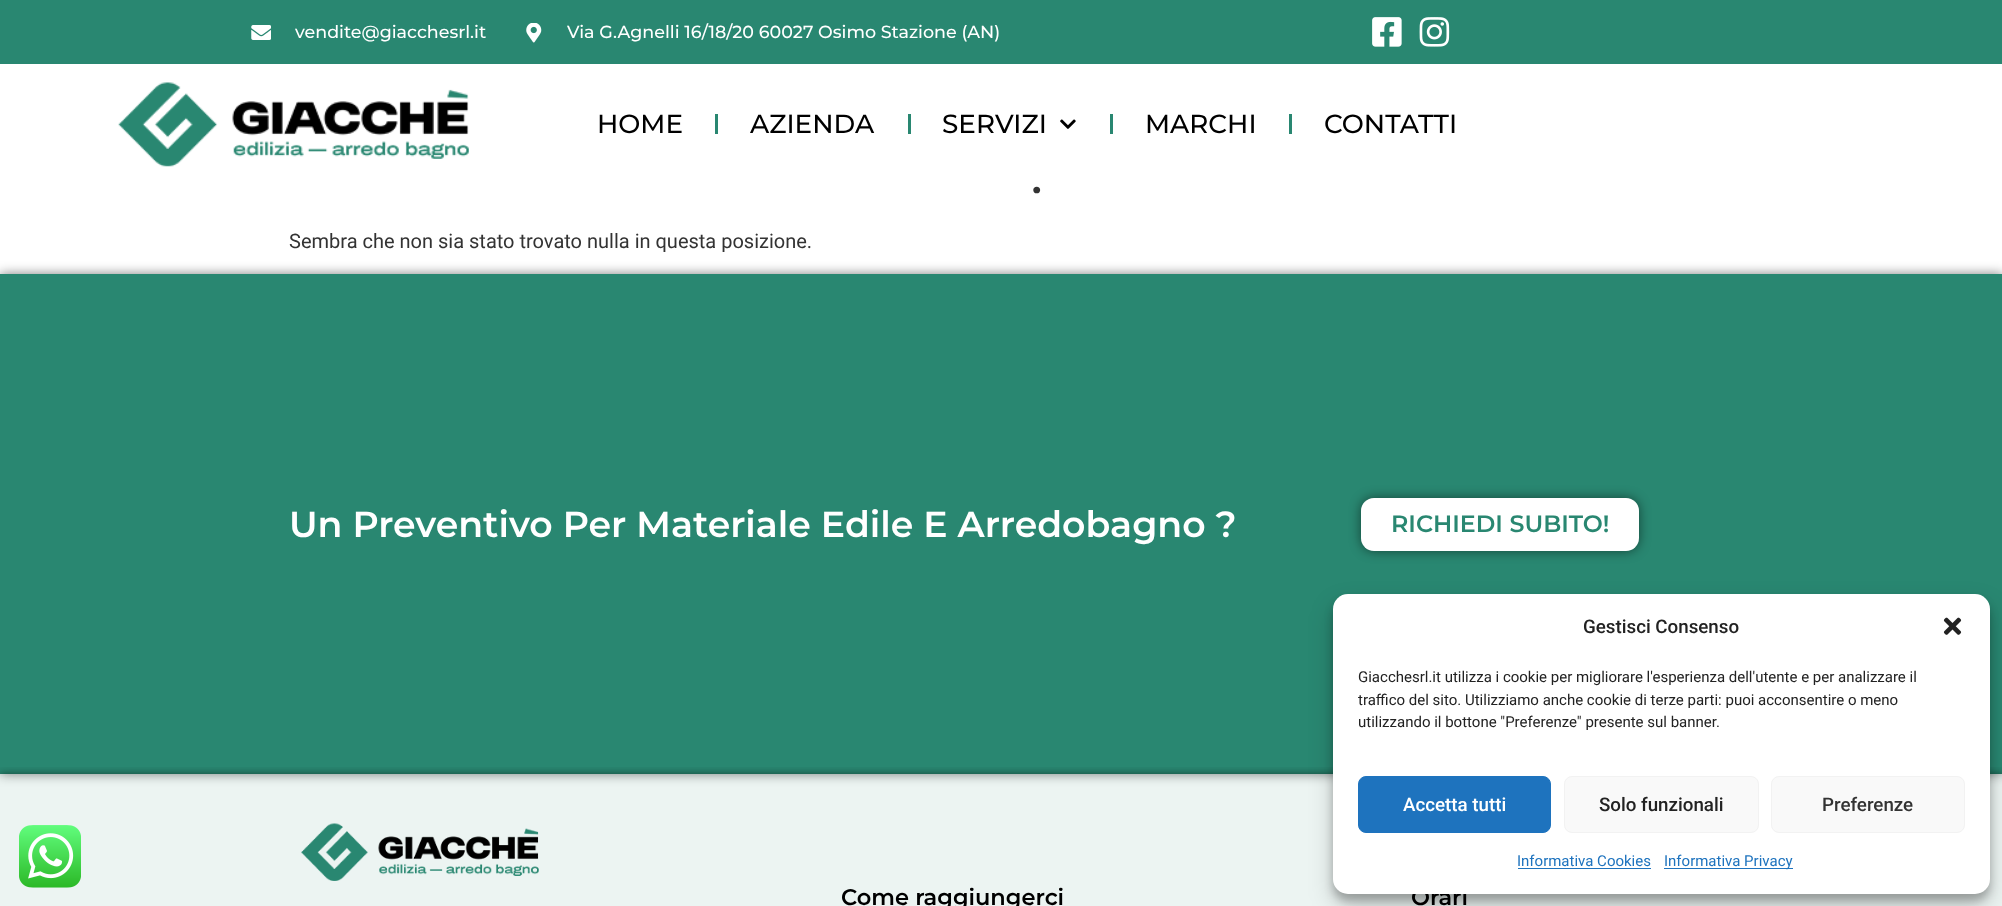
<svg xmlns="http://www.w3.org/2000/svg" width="2002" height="906">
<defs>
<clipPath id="clip1"><rect x="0" y="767" width="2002" height="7"/></clipPath>
</defs>
<rect width="100%" height="100%" fill="#fff"/>
<rect width="2002" height="64" fill="#298771"/>
<image x="251" y="25" width="20" height="15" href="media/1.png"/>
<text x="295" y="38" style="font-family:Montserrat;font-size:17.5px;font-weight:500;fill:#fff">vendite@giacchesrl.it</text>
<image x="526" y="23" width="16" height="20" href="media/2.png"/>
<text x="567" y="38" style="font-family:Montserrat;font-size:17.5px;font-weight:500;fill:#fff">Via G.Agnelli 16/18/20 60027 Osimo Stazione (AN)</text>
<image x="1372" y="17" width="30" height="30" href="media/3.png"/>
<image x="1419" y="17" width="31" height="30" href="media/4.png"/>
<image x="118" y="82" width="351" height="85" href="media/5.png"/>
<text x="597" y="133" style="font-family:Montserrat;font-size:26.25px;font-weight:500;fill:#000">HOME</text>
<rect x="715" y="114" width="3" height="20" fill="#298771"/>
<text x="750" y="133" style="font-family:Montserrat;font-size:26.25px;font-weight:500;fill:#000">AZIENDA</text>
<rect x="908" y="114" width="3" height="20" fill="#298771"/>
<text x="942" y="133" style="font-family:Montserrat;font-size:26.25px;font-weight:500;fill:#000">SERVIZI</text>
<image x="1060" y="119" width="16" height="10" href="media/6.png"/>
<rect x="1110" y="114" width="3" height="20" fill="#298771"/>
<text x="1145" y="133" style="font-family:Montserrat;font-size:26.25px;font-weight:500;fill:#000">MARCHI</text>
<rect x="1289" y="114" width="3" height="20" fill="#298771"/>
<text x="1324" y="133" style="font-family:Montserrat;font-size:26.25px;font-weight:500;fill:#000">CONTATTI</text>
<text x="1030" y="193" style="font-family:Roboto;font-size:50px;font-weight:500;fill:#333">.</text>
<text x="289" y="248" style="font-family:Roboto;font-size:20px;fill:#333">Sembra che non sia stato trovato nulla in questa posizione.</text>
<rect y="274" width="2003" height="500" fill="#00000080" filter="blur(6px)"/>
<rect y="274" width="2002" height="500" fill="#298771"/>
<g clip-path="url(#clip1)">
<rect y="774" width="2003" height="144" fill="#00000080" filter="blur(4px)"/>
</g>
<rect y="774" width="2002" height="132" fill="#29877117"/>
<image x="19" y="825" width="62" height="63" href="media/7.png"/>
<text x="289" y="537" style="font-family:Montserrat;font-size:36.25px;font-weight:600;fill:#fff">Un Preventivo Per Materiale Edile E Arredobagno ?</text>
<rect x="1361" y="498" width="278" height="53" rx="13" fill="#00000080" filter="blur(6px)"/>
<rect x="1361" y="498" width="278" height="53" rx="13" fill="#fff"/>
<text x="1391" y="532" style="font-family:Montserrat;font-size:23.75px;font-weight:600;fill:#298771">RICHIEDI SUBITO!</text>
<image x="301" y="823" width="238" height="58" href="media/8.png"/>
<text x="841" y="905" style="font-family:Montserrat;font-size:22.5px;font-weight:600;fill:#000">Come raggiungerci</text>
<text x="1411" y="905" style="font-family:Montserrat;font-size:22.5px;font-weight:600;fill:#000">Orari</text>
<rect x="1333" y="601" width="657" height="300" rx="15" fill="#0000003b" filter="blur(4px)"/>
<rect x="1333" y="606" width="657" height="300" rx="15" fill="#00000030" filter="blur(12.5px)"/>
<rect x="1333" y="594" width="657" height="300" rx="15" fill="#fff"/>
<text x="1583" y="633" style="font-family:Roboto;font-size:18.75px;font-weight:500;fill:#222">Gestisci Consenso</text>
<image x="1943" y="617" width="19" height="18" href="media/9.png"/>
<text x="1358" y="682" style="font-family:Roboto;font-size:15px;fill:#222">Giacchesrl.it utilizza i cookie per migliorare l'esperienza dell'utente e per analizzare il</text>
<text x="1358" y="705" style="font-family:Roboto;font-size:15px;fill:#222">traffico del sito. Utilizziamo anche cookie di terze parti: puoi acconsentire o meno</text>
<text x="1358" y="727" style="font-family:Roboto;font-size:15px;fill:#222">utilizzando il bottone "Preferenze" presente sul banner.</text>
<rect x="1358.5" y="776.5" width="192" height="56" rx="7.5" fill="#1e73be" stroke="#1e73be"/>
<text x="1403" y="811" style="font-family:Roboto;font-size:18.75px;font-weight:500;fill:#fff">Accetta tutti</text>
<rect x="1564.5" y="776.5" width="194" height="56" rx="7.5" fill="#f9f9f9" stroke="#f2f2f2"/>
<text x="1599" y="811" style="font-family:Roboto;font-size:18.75px;font-weight:500;fill:#222">Solo funzionali</text>
<rect x="1771.5" y="776.5" width="193" height="56" rx="7.5" fill="#f9f9f9" stroke="#f2f2f2"/>
<text x="1822" y="811" style="font-family:Roboto;font-size:18.75px;font-weight:500;fill:#333">Preferenze</text>
<text x="1517" y="866" style="font-family:Roboto;font-size:15px;fill:#1e73be">Informativa Cookies</text>
<rect x="1518" y="868" width="133" height="1" fill="#1e73be"/>
<rect x="1664" y="868" width="129" height="1" fill="#1e73be"/>
<text x="1664" y="866" style="font-family:Roboto;font-size:15px;fill:#1e73be">Informativa Privacy</text>
</svg>
